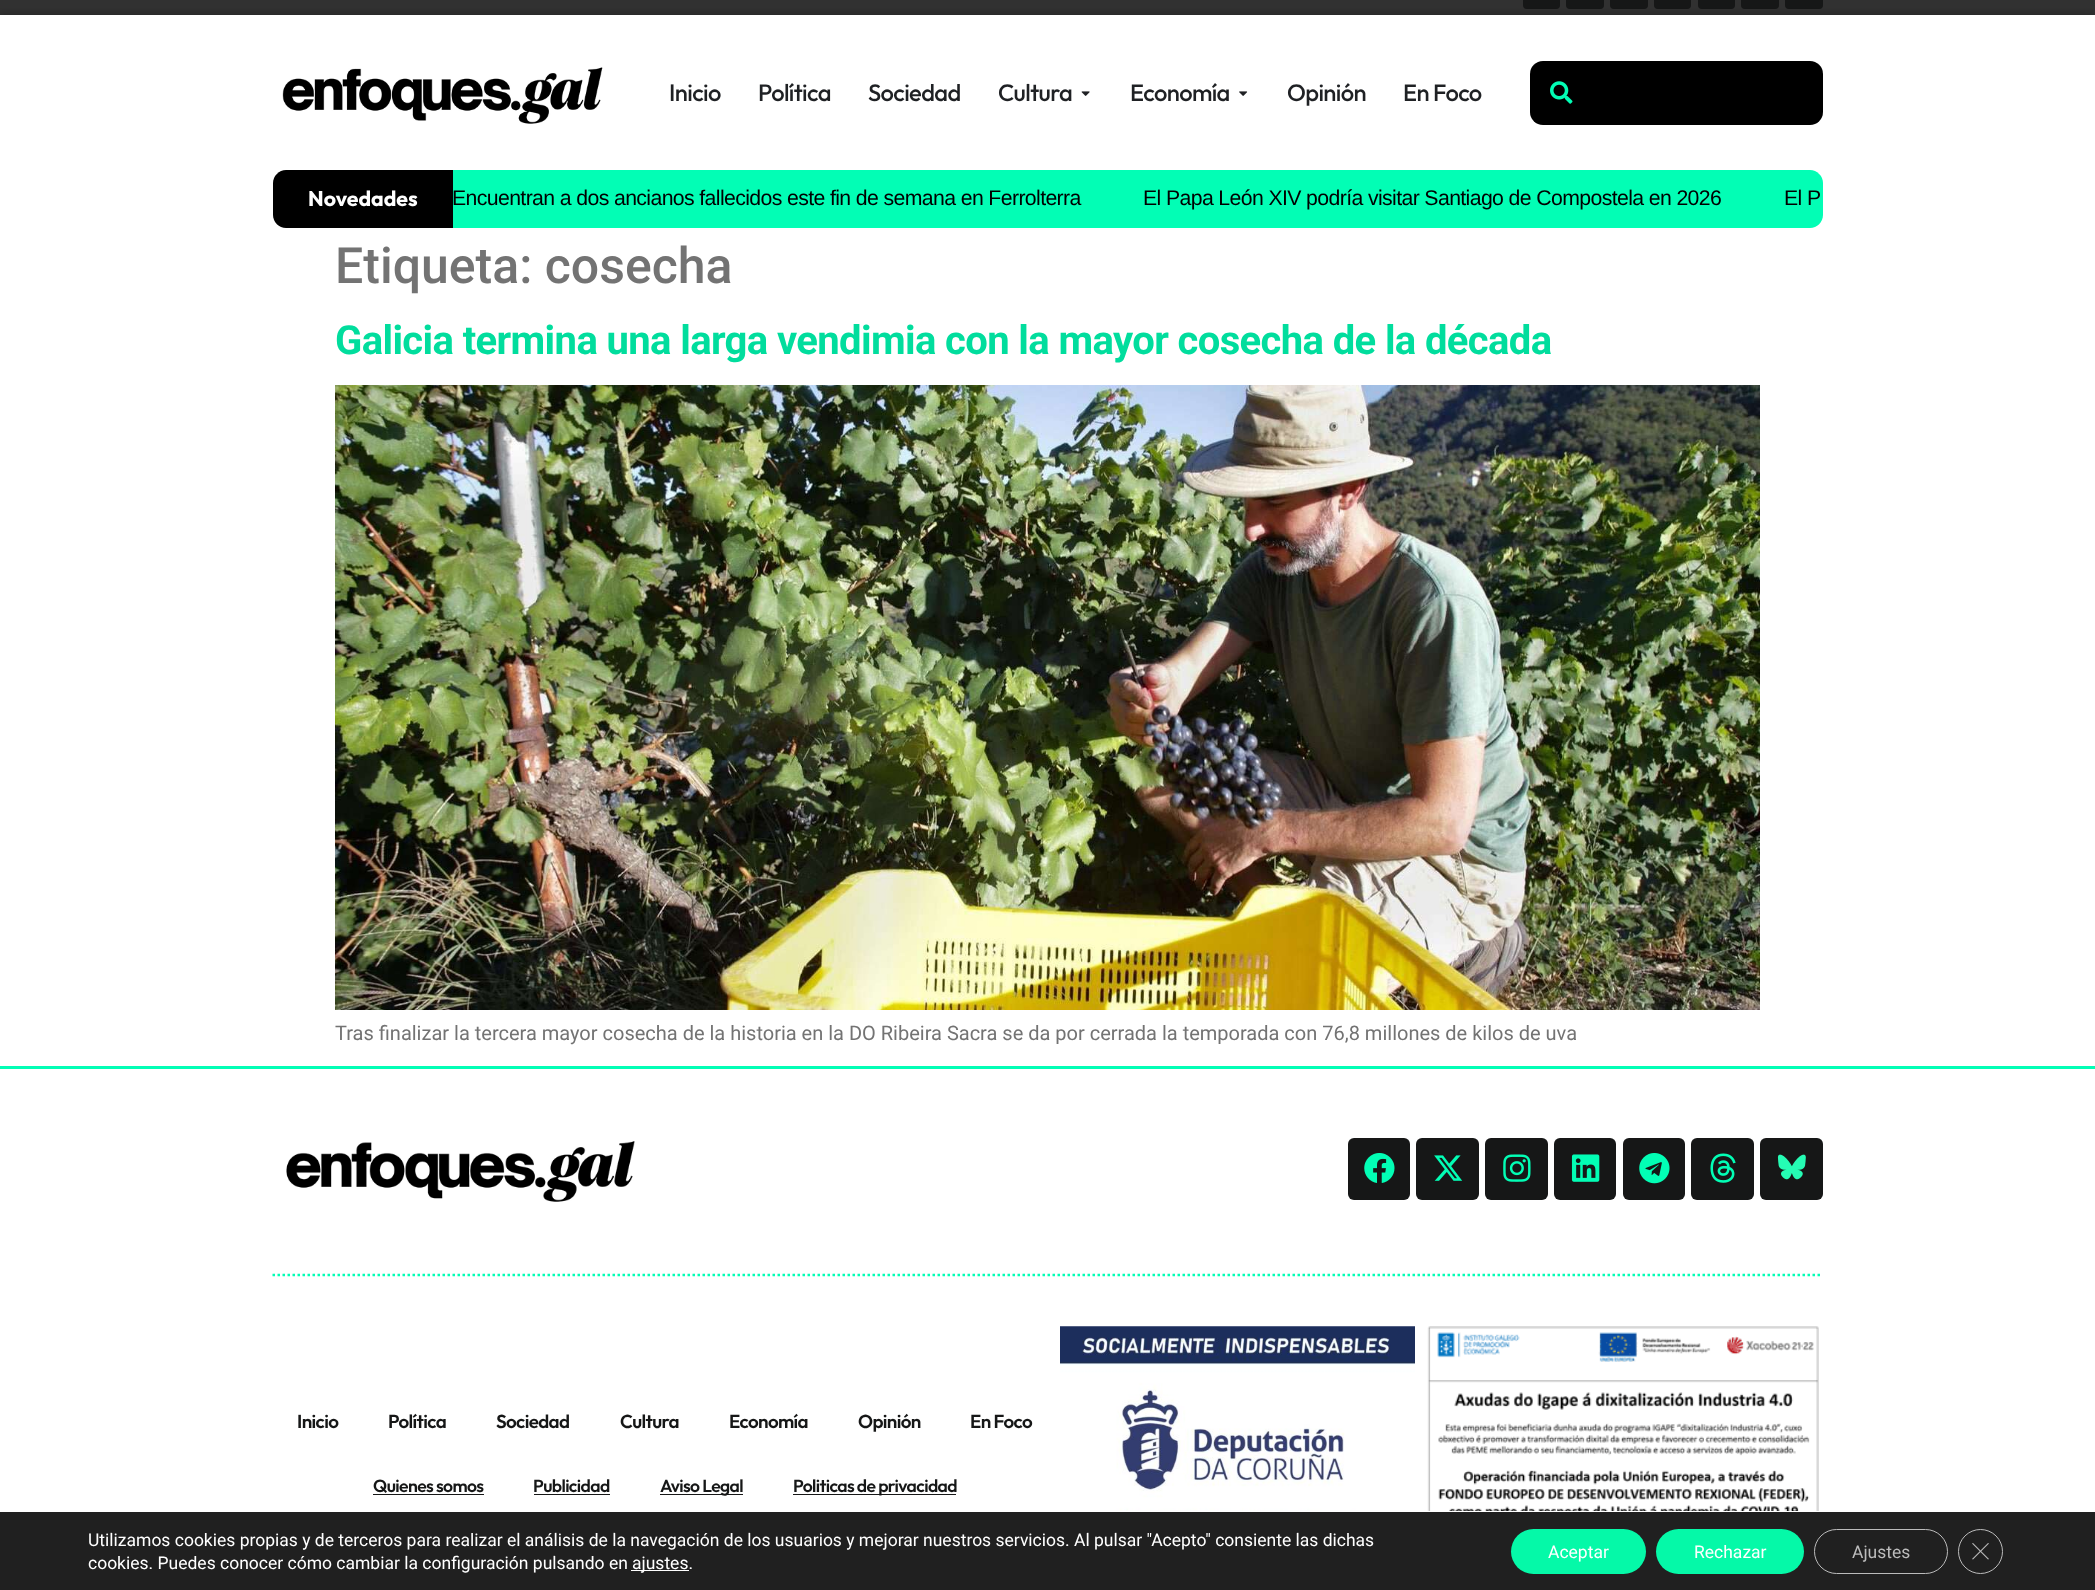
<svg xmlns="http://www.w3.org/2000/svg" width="2095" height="1590">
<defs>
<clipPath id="clip1"><rect x="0" y="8" width="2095" height="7"/></clipPath>
</defs>
<rect width="100%" height="100%" fill="#fff"/>
<rect width="2095" height="15" fill="#313131"/>
<rect x="1523" y="-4" width="37" height="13" rx="4" fill="#161717"/>
<rect x="1566" y="-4" width="38" height="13" rx="4" fill="#161717"/>
<rect x="1610" y="-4" width="38" height="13" rx="4" fill="#161717"/>
<rect x="1654" y="-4" width="37" height="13" rx="4" fill="#161717"/>
<rect x="1698" y="-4" width="37" height="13" rx="4" fill="#161717"/>
<rect x="1741" y="-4" width="38" height="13" rx="4" fill="#161717"/>
<rect x="1785" y="-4" width="38" height="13" rx="4" fill="#161717"/>
<g clip-path="url(#clip1)">
<rect y="15" width="2095" height="155" fill="#00000045" filter="blur(5px)"/>
</g>
<image x="282" y="67" width="321" height="57" href="media/1.png"/>
<text x="669" y="101" style="font-family:Outfit;font-size:23.75px;font-weight:500;letter-spacing:-0.62px;fill:#1f2124">Inicio</text>
<text x="758" y="101" style="font-family:Outfit;font-size:23.75px;font-weight:500;letter-spacing:-0.62px;fill:#1f2124">Política</text>
<text x="868" y="101" style="font-family:Outfit;font-size:23.75px;font-weight:500;letter-spacing:-0.62px;fill:#1f2124">Sociedad</text>
<text x="998" y="101" style="font-family:Outfit;font-size:23.75px;font-weight:500;letter-spacing:-0.62px;fill:#1f2124">Cultura</text>
<image x="1081" y="91" width="9" height="5" href="media/2.png"/>
<text x="1130" y="101" style="font-family:Outfit;font-size:23.75px;font-weight:500;letter-spacing:-0.62px;fill:#1f2124">Economía</text>
<image x="1239" y="91" width="9" height="5" href="media/3.png"/>
<text x="1287" y="101" style="font-family:Outfit;font-size:23.75px;font-weight:500;letter-spacing:-0.62px;fill:#1f2124">Opinión</text>
<text x="1403" y="101" style="font-family:Outfit;font-size:23.75px;font-weight:500;letter-spacing:-0.62px;fill:#1f2124">En Foco</text>
<rect x="1530" y="61" width="293" height="64" rx="13" fill="#000"/>
<image x="1550" y="81" width="23" height="23" href="media/4.png"/>
<rect y="170" width="2095" height="9" fill="#fff"/>
<path d="M286 170h167v58h-167c-7 0-13-6-13-13v-32c0-7 6-13 13-13z" fill="#000"/>
<text x="308" y="206" style="font-family:Outfit;font-size:21.25px;font-weight:bold;fill:#fff">Novedades</text>
<path d="M453 170h1357c7 0 13 6 13 13v32c0 7-6 13-13 13h-1357z" fill="#02feb5"/>
<text x="452" y="205" style="font-family:Liberation Sans;font-size:21.25px;letter-spacing:-0.62px;fill:#000">Encuentran a dos ancianos fallecidos este fin de semana en Ferrolterra</text>
<text x="1143" y="205" style="font-family:Liberation Sans;font-size:21.25px;letter-spacing:-0.62px;fill:#000">El Papa León XIV podría visitar Santiago de Compostela en 2026</text>
<text x="1784" y="205" style="font-family:Liberation Sans;font-size:21.25px;letter-spacing:-0.62px;fill:#000">El P</text>
<text x="335" y="283" style="font-family:Roboto;font-size:50px;font-weight:500;fill:#737373">Etiqueta: cosecha</text>
<text x="335" y="354" style="font-family:Roboto;font-size:40px;font-weight:bold;letter-spacing:-0.62px;fill:#01dd9d">Galicia termina una larga vendimia con la mayor cosecha de la década</text>
<image x="335" y="385" width="1425" height="625" href="media/5.png"/>
<text x="335" y="1040" style="font-family:Roboto;font-size:20px;fill:#737373">Tras finalizar la tercera mayor cosecha de la historia en la DO Ribeira Sacra se da por cerrada la temporada con 76,8 millones de kilos de uva</text>
<rect y="1066" width="2095" height="3" fill="#02feb5"/>
<image x="286" y="1141" width="349" height="61" href="media/6.png"/>
<rect x="1348" y="1138" width="62" height="62" rx="6" fill="#161717"/>
<image x="1364" y="1153" width="31" height="30" href="media/7.png"/>
<rect x="1416" y="1138" width="63" height="62" rx="6" fill="#161717"/>
<image x="1434" y="1155" width="29" height="26" href="media/8.png"/>
<rect x="1485" y="1138" width="63" height="62" rx="6" fill="#161717"/>
<image x="1503" y="1154" width="28" height="28" href="media/9.png"/>
<rect x="1554" y="1138" width="62" height="62" rx="6" fill="#161717"/>
<image x="1571" y="1154" width="29" height="28" href="media/10.png"/>
<rect x="1623" y="1138" width="62" height="62" rx="6" fill="#161717"/>
<image x="1639" y="1153" width="31" height="31" href="media/11.png"/>
<rect x="1691" y="1138" width="63" height="62" rx="6" fill="#161717"/>
<image x="1710" y="1153" width="26" height="30" href="media/12.png"/>
<rect x="1760" y="1138" width="63" height="62" rx="6" fill="#161717"/>
<image x="1777" y="1154" width="29" height="26" href="media/13.png"/>
<path d="M272.5 1275h1550" fill="none" stroke="#02feb5" stroke-width="2.5" stroke-dasharray="2.5 2.5"/>
<text x="297" y="1428" style="font-family:Outfit;font-size:18.75px;font-weight:600;letter-spacing:-0.62px;fill:#161717">Inicio</text>
<text x="388" y="1428" style="font-family:Outfit;font-size:18.75px;font-weight:600;letter-spacing:-0.62px;fill:#161717">Política</text>
<text x="496" y="1428" style="font-family:Outfit;font-size:18.75px;font-weight:600;letter-spacing:-0.62px;fill:#161717">Sociedad</text>
<text x="620" y="1428" style="font-family:Outfit;font-size:18.75px;font-weight:600;letter-spacing:-0.62px;fill:#161717">Cultura</text>
<text x="729" y="1428" style="font-family:Outfit;font-size:18.75px;font-weight:600;letter-spacing:-0.62px;fill:#161717">Economía</text>
<text x="858" y="1428" style="font-family:Outfit;font-size:18.75px;font-weight:600;letter-spacing:-0.62px;fill:#161717">Opinión</text>
<text x="970" y="1428" style="font-family:Outfit;font-size:18.75px;font-weight:600;letter-spacing:-0.62px;fill:#161717">En Foco</text>
<text x="373" y="1492" style="font-family:Outfit;font-size:17.5px;font-weight:600;letter-spacing:-0.62px;fill:#161717">Quienes somos</text>
<rect x="373" y="1494" width="111" height="1" fill="#161717"/>
<text x="533" y="1492" style="font-family:Outfit;font-size:17.5px;font-weight:600;letter-spacing:-0.62px;fill:#161717">Publicidad</text>
<rect x="534" y="1494" width="76" height="1" fill="#161717"/>
<rect x="660" y="1494" width="83" height="1" fill="#161717"/>
<text x="660" y="1492" style="font-family:Outfit;font-size:17.5px;font-weight:600;letter-spacing:-0.62px;fill:#161717">Aviso Legal</text>
<rect x="793" y="1494" width="163" height="1" fill="#161717"/>
<text x="793" y="1492" style="font-family:Outfit;font-size:17.5px;font-weight:600;letter-spacing:-0.62px;fill:#161717">Politicas de privacidad</text>
<image x="1060" y="1326" width="355" height="185" href="media/14.png"/>
<image x="1427" y="1326" width="392" height="185" href="media/15.png"/>
<rect y="1512" width="2095" height="78" fill="#202020"/>
<text x="88" y="1546" style="font-family:Roboto;font-size:17.5px;fill:#fff">Utilizamos cookies propias y de terceros para realizar el análisis de la navegación de los usuarios y mejorar nuestros servicios. Al pulsar "Acepto" consiente las dichas</text>
<text x="88" y="1569" style="font-family:Roboto;font-size:17.5px;fill:#fff">cookies. Puedes conocer cómo cambiar la configuración pulsando en</text>
<rect x="631" y="1570" width="58" height="1" fill="#fff"/>
<text x="632" y="1569" style="font-family:Roboto;font-size:17.5px;fill:#fff">ajustes.</text>
<rect x="1511" y="1529" width="135" height="45" rx="22.5" fill="#05f9a8"/>
<text x="1548" y="1558" style="font-family:Roboto;font-size:17.5px;fill:#fff">Aceptar</text>
<rect x="1656" y="1529" width="148" height="45" rx="22.5" fill="#05f9a8"/>
<text x="1694" y="1558" style="font-family:Roboto;font-size:17.5px;fill:#fff">Rechazar</text>
<rect x="1814.5" y="1529.5" width="133" height="44" rx="22" fill="none" stroke="#bcbcbc"/>
<text x="1852" y="1558" style="font-family:Roboto;font-size:17.5px;fill:#bcbcbc">Ajustes</text>
<circle cx="1980.5" cy="1551.5" r="22" fill="none" stroke="#bcbcbc"/>
<path d="M1988 1543l1 .5l-16 16l-1-.5z" fill="#bcbcbc"/>
<path d="M1972 1543.5l1-.5l16 16l-1 .5z" fill="#bcbcbc"/>
</svg>
